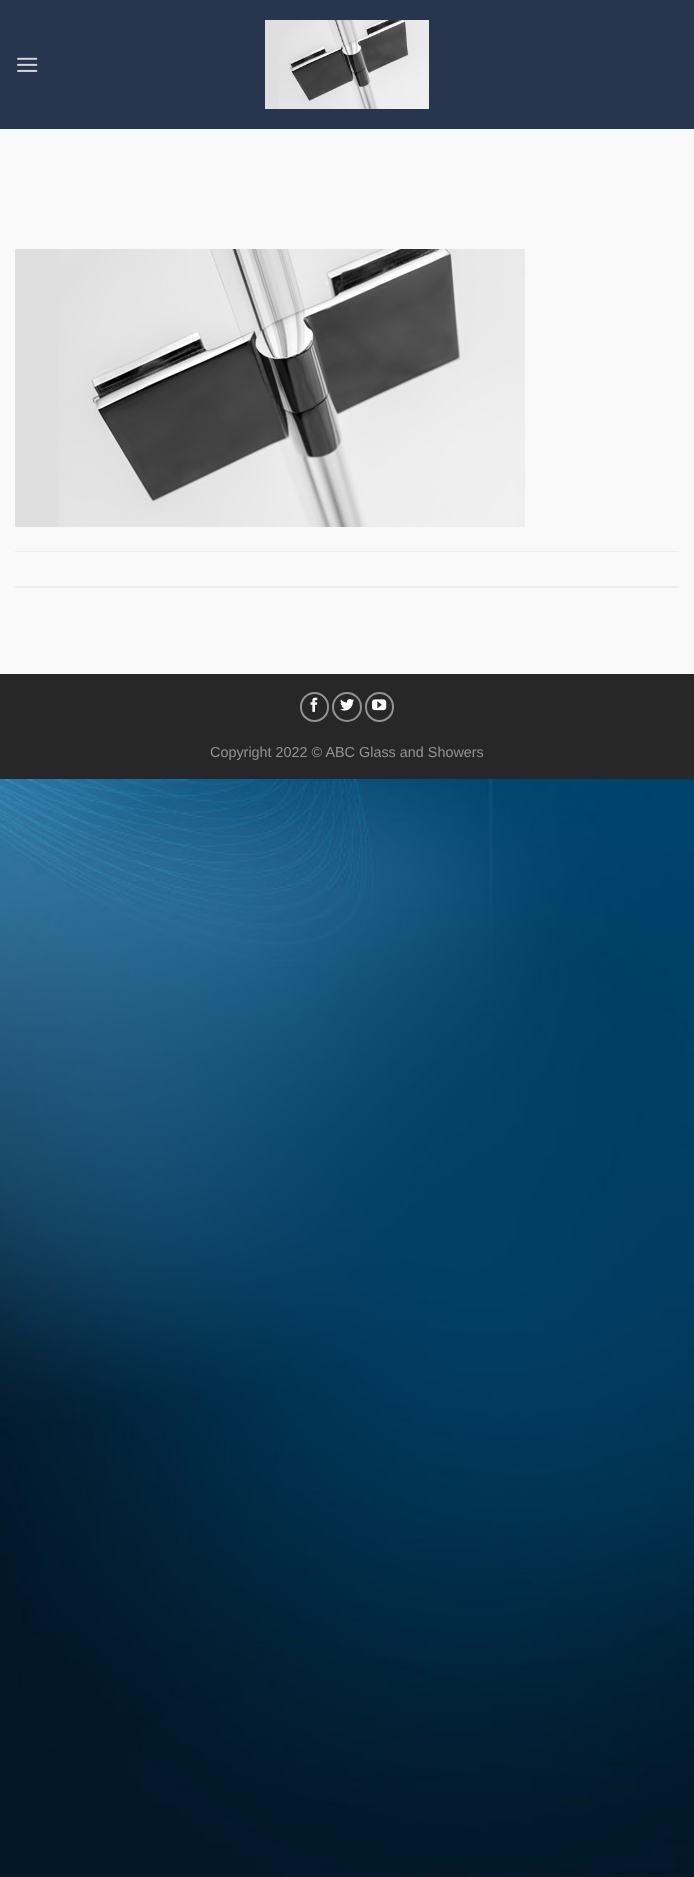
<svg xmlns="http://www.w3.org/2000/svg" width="694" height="1877">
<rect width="100%" height="100%" fill="#fff"/>
<image x="0" y="779" width="694" height="1098" href="media/1.png"/>
<rect y="129" width="694" height="545" fill="#f9f9f9"/>
<rect width="694" height="129" fill="#27354f"/>
<image x="17" y="57" width="21" height="15" href="media/2.png"/>
<image x="265" y="20" width="164" height="89" href="media/3.png"/>
<image x="15" y="249" width="510" height="278" href="media/4.png"/>
<rect x="15" y="551" width="664" height="1" fill="#ececec"/>
<rect x="15" y="586" width="664" height="2" fill="#ececec"/>
<rect y="674" width="694" height="105" fill="#272727"/>
<rect x="301" y="693" width="27" height="28" rx="13.5" fill="none" stroke="#939393" stroke-width="2"/>
<image x="310" y="697" width="8" height="15" href="media/5.png"/>
<circle cx="347" cy="707" r="14" fill="none" stroke="#939393" stroke-width="2"/>
<image x="340" y="699" width="15" height="12" href="media/6.png"/>
<rect x="366" y="693" width="27" height="28" rx="13.5" fill="none" stroke="#939393" stroke-width="2"/>
<image x="372" y="699" width="15" height="12" href="media/7.png"/>
<text x="210" y="757" style="font-family:Liberation Sans;font-size:14.4px;fill:#939393">Copyright 2022 © ABC Glass and Showers</text>
</svg>
